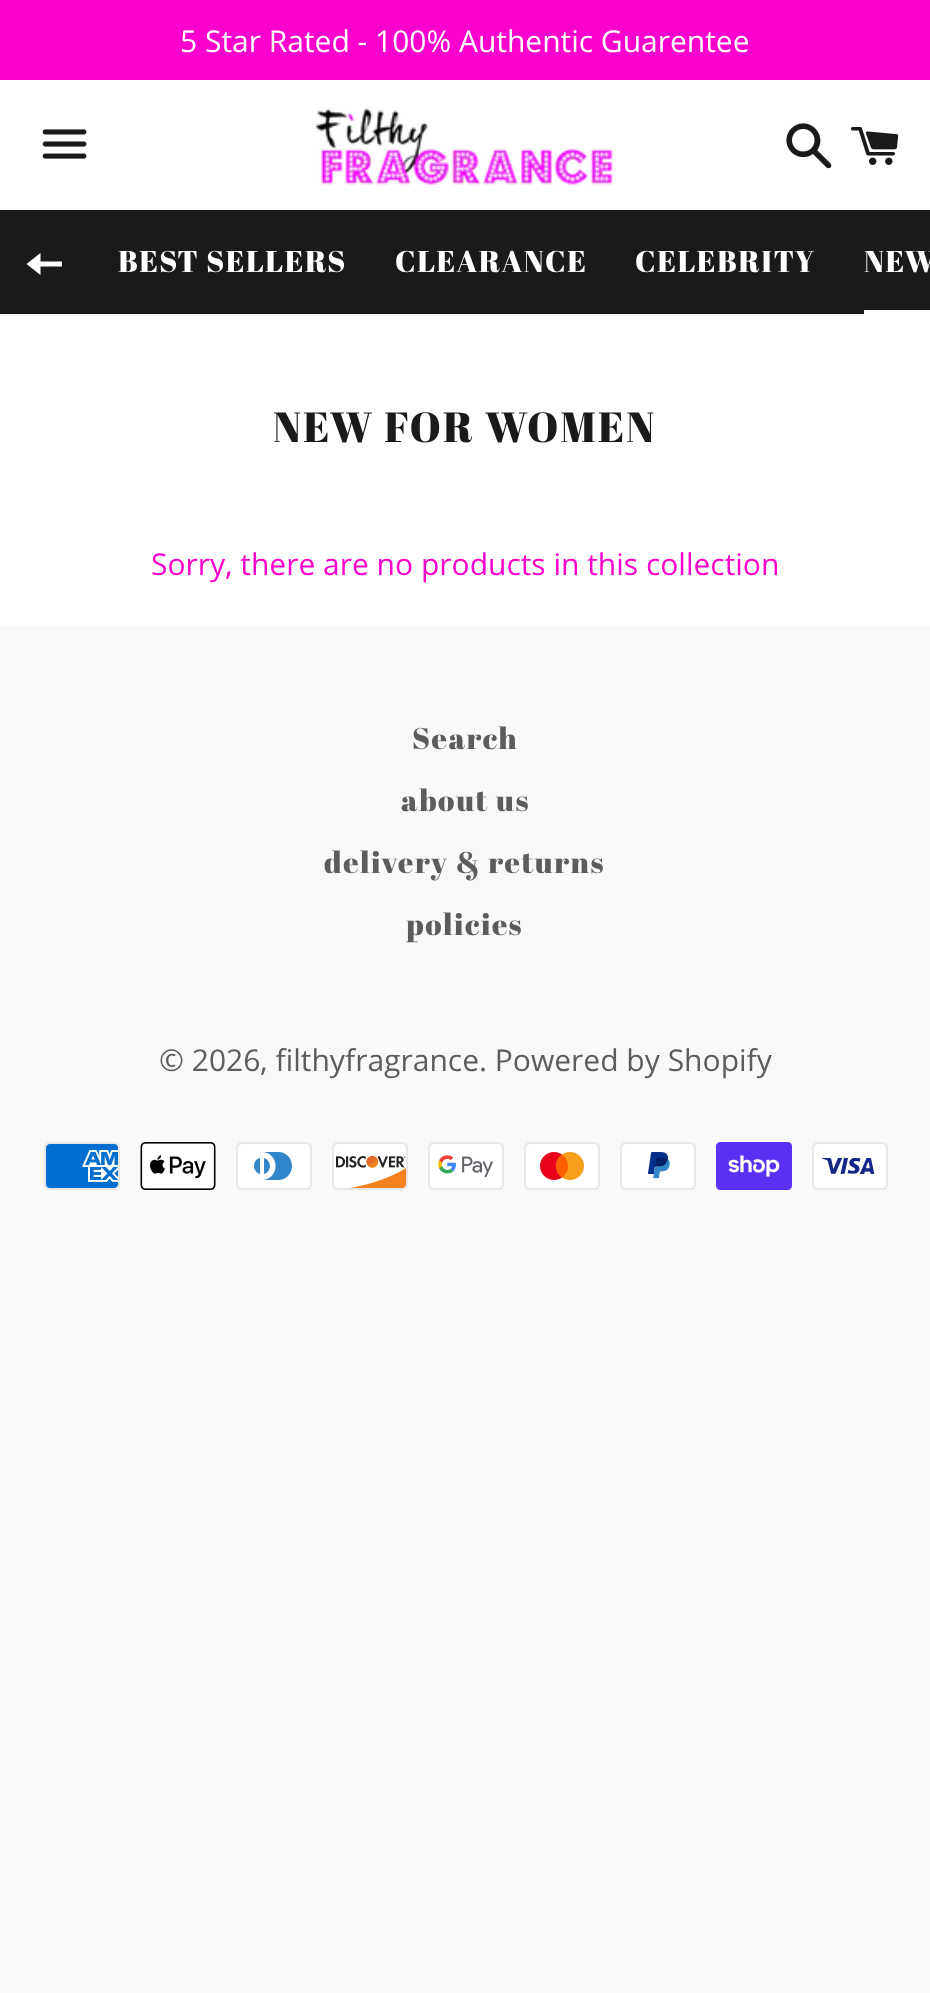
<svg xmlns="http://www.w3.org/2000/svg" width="930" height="1993">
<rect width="100%" height="100%" fill="#f9f9f9"/>
<rect y="80" width="930" height="546" fill="#fff"/>
<rect width="930" height="80" fill="#fc00ce"/>
<text x="180" y="52" style="font-family:Open Sans;font-size:30px;fill:#fff">5 Star Rated - 100% Authentic Guarentee</text>
<image x="42" y="129" width="45" height="30" href="media/1.png"/>
<image x="316" y="108" width="297" height="77" href="media/2.png"/>
<image x="786" y="123" width="46" height="46" href="media/3.png"/>
<image x="850" y="127" width="49" height="38" href="media/4.png"/>
<rect y="210" width="930" height="104" fill="#1a1a1a"/>
<path d="M40.5 261.5v-8.5l-14 11l14 11v-8.5h21.5v-5z" fill="#fff"/>
<text x="118" y="272" style="font-family:Abril Fatface;font-size:30px;letter-spacing:1.5px;fill:#fff">BEST SELLERS</text>
<text x="395" y="272" style="font-family:Abril Fatface;font-size:30px;letter-spacing:1.5px;fill:#fff">CLEARANCE</text>
<text x="635" y="272" style="font-family:Abril Fatface;font-size:30px;letter-spacing:1.5px;fill:#fff">CELEBRITY</text>
<text x="864" y="272" style="font-family:Abril Fatface;font-size:30px;letter-spacing:1.5px;fill:#fff">NEW</text>
<rect x="864" y="310" width="66" height="4" fill="#fff"/>
<text x="273" y="442" style="font-family:Abril Fatface;font-size:42px;letter-spacing:2.1px;fill:#1a1a1a">NEW FOR WOMEN</text>
<text x="151" y="575" style="font-family:Open Sans;font-size:30px;fill:#fc00ce">Sorry, there are no products in this collection</text>
<text x="412" y="749" style="font-family:Abril Fatface;font-size:30px;letter-spacing:1.5px;fill:#5c5c5c">Search</text>
<text x="401" y="811" style="font-family:Abril Fatface;font-size:30px;letter-spacing:1.5px;fill:#5c5c5c">about us</text>
<text x="324" y="873" style="font-family:Abril Fatface;font-size:30px;letter-spacing:1.5px;fill:#5c5c5c">delivery &amp; returns</text>
<text x="406" y="935" style="font-family:Abril Fatface;font-size:30px;letter-spacing:1.5px;fill:#5c5c5c">policies</text>
<text x="159" y="1071" style="font-family:Open Sans;font-size:30px;fill:#5c5c5c">© 2026, filthyfragrance. Powered by Shopify</text>
<image x="44" y="1142" width="76" height="48" href="media/5.png"/>
<image x="140" y="1142" width="76" height="48" href="media/6.png"/>
<image x="236" y="1142" width="76" height="48" href="media/7.png"/>
<image x="332" y="1142" width="76" height="48" href="media/8.png"/>
<image x="428" y="1142" width="76" height="48" href="media/9.png"/>
<image x="524" y="1142" width="76" height="48" href="media/10.png"/>
<image x="620" y="1142" width="76" height="48" href="media/11.png"/>
<image x="716" y="1142" width="76" height="48" href="media/12.png"/>
<image x="812" y="1142" width="76" height="48" href="media/13.png"/>
</svg>
